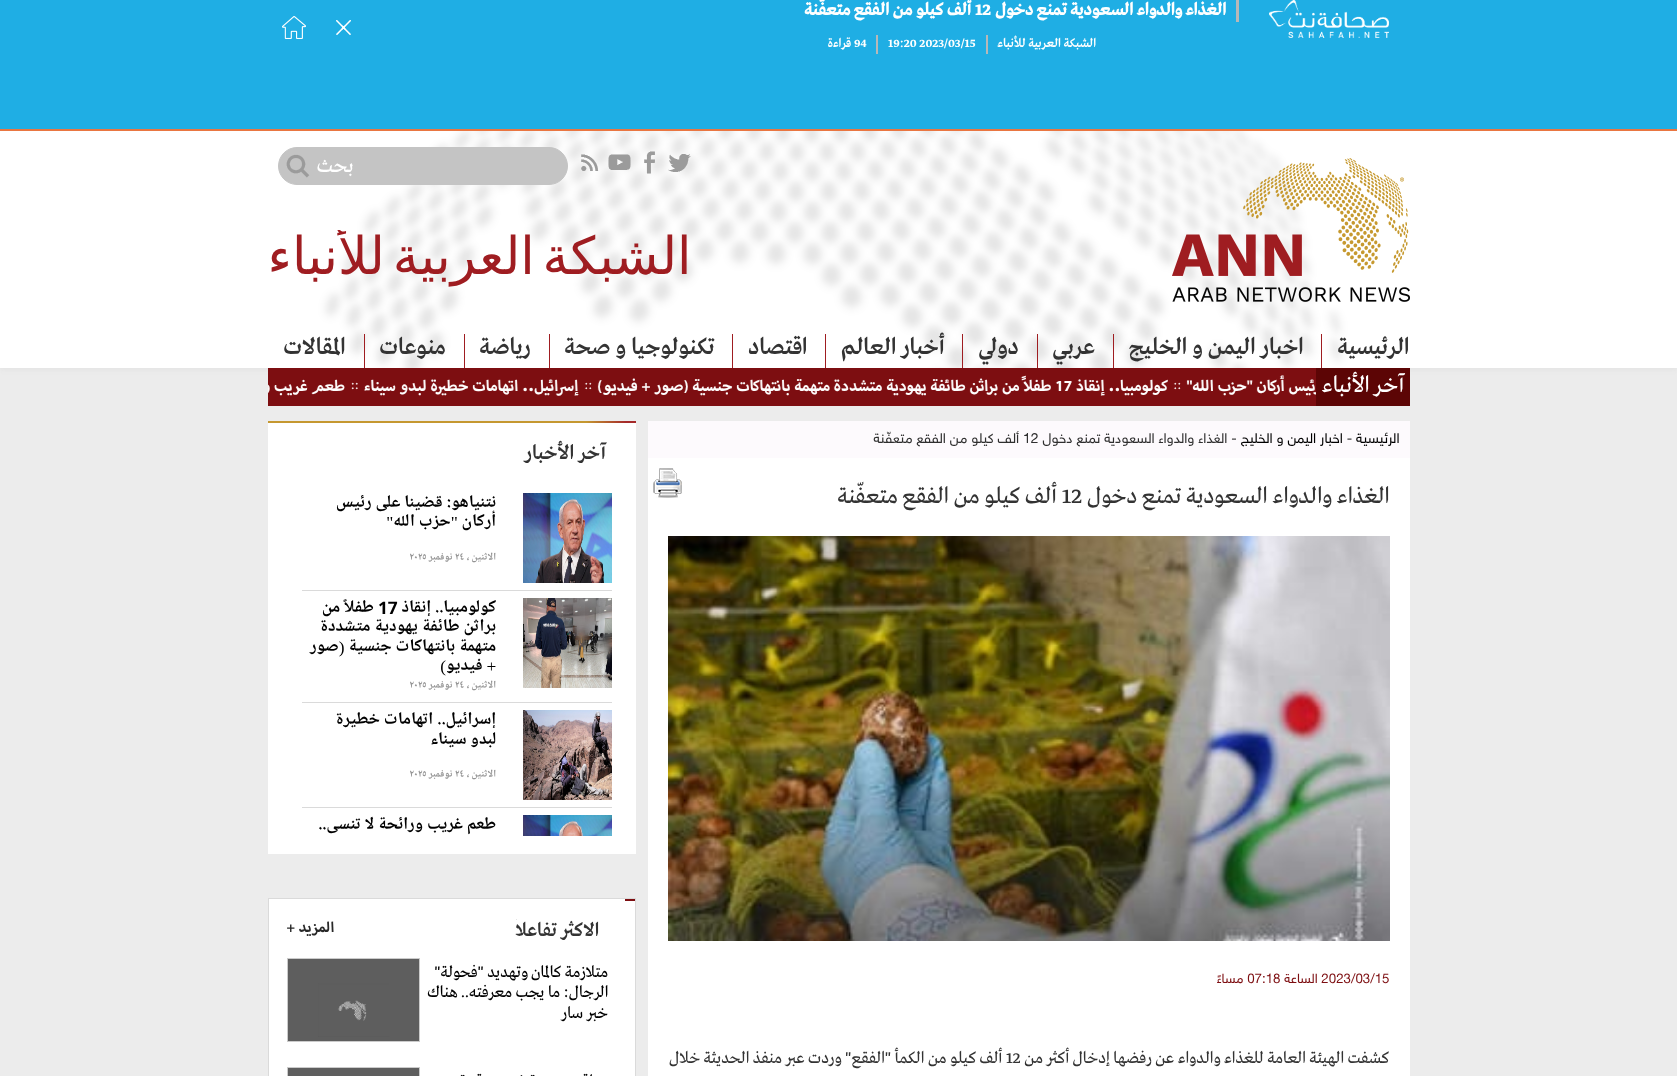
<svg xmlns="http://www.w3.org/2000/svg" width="1677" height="1076">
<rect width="100%" height="100%" fill="#1faee4"/>
<rect y="129" width="1677" height="2" fill="#e97641"/>
<image x="1269" y="0" width="120" height="38" href="media/1.png"/>
<rect x="1236" width="3" height="22" fill="#b8b8b8"/>
<text x="1226" y="15" style="font-family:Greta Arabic;font-size:18px;font-weight:bold;direction:rtl;fill:#fff">الغذاء والدواء السعودية تمنع دخول</text>
<text x="975" y="15" style="font-family:Greta Arabic;font-size:18px;font-weight:bold;fill:#fff">12</text>
<text x="971" y="15" style="font-family:Greta Arabic;font-size:18px;font-weight:bold;direction:rtl;fill:#fff">ألف كيلو من الفقع متعفّنة</text>
<text x="1096" y="47" style="font-family:Greta Arabic;font-size:13px;font-weight:500;direction:rtl;fill:#fff">الشبكة العربية للأنباء</text>
<rect x="986" y="35" width="2" height="19" fill="#b8b8b8"/>
<text x="888" y="47" style="font-family:Greta Arabic;font-size:13px;font-weight:500;fill:#fff">19:20 2023/03/15</text>
<rect x="876" y="35" width="2" height="19" fill="#b8b8b8"/>
<text x="854" y="47" style="font-family:Greta Arabic;font-size:13px;font-weight:500;fill:#fff">94</text>
<text x="851" y="47" style="font-family:Greta Arabic;font-size:13px;font-weight:500;direction:rtl;fill:#fff">قراءة</text>
<image x="336" y="20" width="15" height="15" href="media/2.png"/>
<image x="282" y="16" width="24" height="23" href="media/3.png"/>
<image x="0" y="131" width="1677" height="945" href="media/4.png"/>
</svg>
